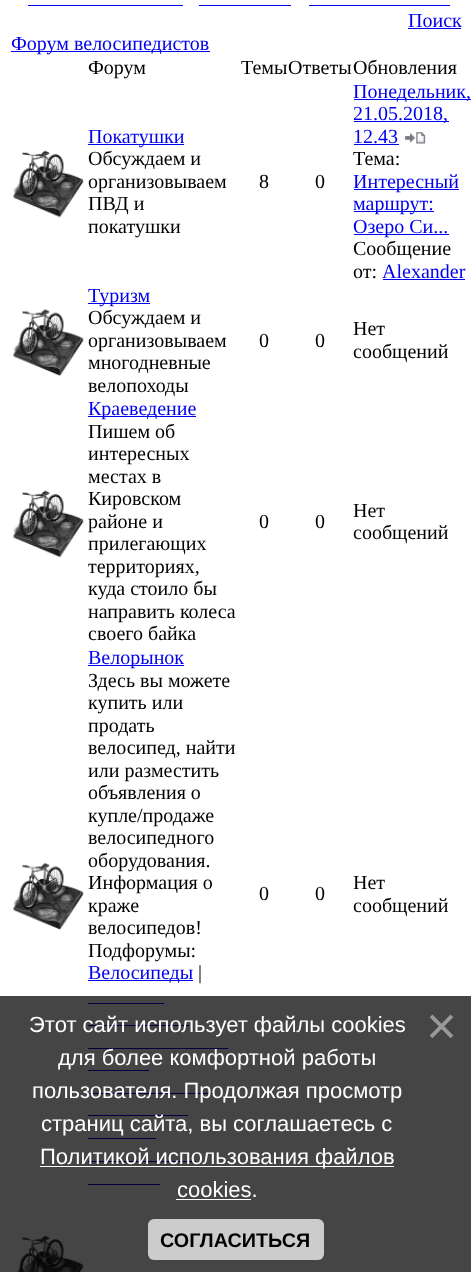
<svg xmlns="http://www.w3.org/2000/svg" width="471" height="1272">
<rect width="100%" height="100%" fill="#fff"/>
<rect x="28" y="5" width="155" height="1" fill="#00e"/>
<rect x="199" y="5" width="92" height="1" fill="#00e"/>
<rect x="309" y="5" width="141" height="1" fill="#00e"/>
<text x="408" y="27" style="font-family:Liberation Serif;font-size:20px;fill:#00e">Поиск</text>
<rect x="408" y="28" width="53" height="1" fill="#00e"/>
<rect x="11" y="51" width="199" height="1" fill="#00e"/>
<text x="11" y="50" style="font-family:Liberation Serif;font-size:20px;fill:#00e">Форум велосипедистов</text>
<text x="88" y="74" style="font-family:Liberation Serif;font-size:20px;fill:#000">Форум</text>
<text x="241" y="74" style="font-family:Liberation Serif;font-size:20px;fill:#000">Темы</text>
<text x="288" y="74" style="font-family:Liberation Serif;font-size:20px;fill:#000">Ответы</text>
<text x="353" y="74" style="font-family:Liberation Serif;font-size:20px;fill:#000">Обновления</text>
<image x="13" y="150" width="71" height="68" href="media/1.png"/>
<rect x="88" y="144" width="96" height="1" fill="#00e"/>
<text x="88" y="143" style="font-family:Liberation Serif;font-size:20px;fill:#00e">Покатушки</text>
<text x="88" y="165" style="font-family:Liberation Serif;font-size:20px;fill:#000">Обсуждаем и</text>
<text x="88" y="188" style="font-family:Liberation Serif;font-size:20px;fill:#000">организовываем</text>
<text x="88" y="210" style="font-family:Liberation Serif;font-size:20px;fill:#000">ПВД и</text>
<text x="88" y="233" style="font-family:Liberation Serif;font-size:20px;fill:#000">покатушки</text>
<text x="259" y="188" style="font-family:Liberation Serif;font-size:20px;fill:#000">8</text>
<text x="315" y="188" style="font-family:Liberation Serif;font-size:20px;fill:#000">0</text>
<rect x="354" y="99" width="117" height="1" fill="#00e"/>
<text x="353" y="98" style="font-family:Liberation Serif;font-size:20px;fill:#00e">Понедельник,</text>
<rect x="354" y="121" width="95" height="1" fill="#00e"/>
<text x="353" y="120" style="font-family:Liberation Serif;font-size:20px;fill:#00e">21.05.2018,</text>
<text x="353" y="143" style="font-family:Liberation Serif;font-size:20px;fill:#00e">12.43</text>
<rect x="354" y="144" width="45" height="1" fill="#00e"/>
<image x="404" y="132" width="22" height="12" href="media/2.png"/>
<text x="353" y="165" style="font-family:Liberation Serif;font-size:20px;fill:#000">Тема:</text>
<rect x="354" y="189" width="105" height="1" fill="#00e"/>
<text x="353" y="188" style="font-family:Liberation Serif;font-size:20px;fill:#00e">Интересный</text>
<rect x="354" y="211" width="80" height="1" fill="#00e"/>
<text x="353" y="210" style="font-family:Liberation Serif;font-size:20px;fill:#00e">маршрут:</text>
<rect x="354" y="234" width="95" height="1" fill="#00e"/>
<text x="353" y="233" style="font-family:Liberation Serif;font-size:20px;fill:#00e">Озеро Си...</text>
<text x="353" y="255" style="font-family:Liberation Serif;font-size:20px;fill:#000">Сообщение</text>
<text x="353" y="278" style="font-family:Liberation Serif;font-size:20px;fill:#000">от:</text>
<text x="382" y="278" style="font-family:Liberation Serif;font-size:20px;fill:#00e">Alexander</text>
<rect x="383" y="279" width="82" height="1" fill="#00e"/>
<image x="13" y="309" width="71" height="68" href="media/3.png"/>
<rect x="88" y="303" width="62" height="1" fill="#00e"/>
<text x="88" y="302" style="font-family:Liberation Serif;font-size:20px;fill:#00e">Туризм</text>
<text x="88" y="324" style="font-family:Liberation Serif;font-size:20px;fill:#000">Обсуждаем и</text>
<text x="88" y="347" style="font-family:Liberation Serif;font-size:20px;fill:#000">организовываем</text>
<text x="88" y="369" style="font-family:Liberation Serif;font-size:20px;fill:#000">многодневные</text>
<text x="88" y="392" style="font-family:Liberation Serif;font-size:20px;fill:#000">велопоходы</text>
<text x="259" y="347" style="font-family:Liberation Serif;font-size:20px;fill:#000">0</text>
<text x="315" y="347" style="font-family:Liberation Serif;font-size:20px;fill:#000">0</text>
<text x="353" y="335" style="font-family:Liberation Serif;font-size:20px;fill:#000">Нет</text>
<text x="353" y="358" style="font-family:Liberation Serif;font-size:20px;fill:#000">сообщений</text>
<image x="13" y="490" width="71" height="68" href="media/4.png"/>
<rect x="88" y="416" width="108" height="1" fill="#00e"/>
<text x="88" y="415" style="font-family:Liberation Serif;font-size:20px;fill:#00e">Краеведение</text>
<text x="88" y="438" style="font-family:Liberation Serif;font-size:20px;fill:#000">Пишем об</text>
<text x="88" y="460" style="font-family:Liberation Serif;font-size:20px;fill:#000">интересных</text>
<text x="88" y="483" style="font-family:Liberation Serif;font-size:20px;fill:#000">местах в</text>
<text x="88" y="505" style="font-family:Liberation Serif;font-size:20px;fill:#000">Кировском</text>
<text x="88" y="528" style="font-family:Liberation Serif;font-size:20px;fill:#000">районе и</text>
<text x="88" y="550" style="font-family:Liberation Serif;font-size:20px;fill:#000">прилегающих</text>
<text x="88" y="573" style="font-family:Liberation Serif;font-size:20px;fill:#000">территориях,</text>
<text x="88" y="595" style="font-family:Liberation Serif;font-size:20px;fill:#000">куда стоило бы</text>
<text x="88" y="618" style="font-family:Liberation Serif;font-size:20px;fill:#000">направить колеса</text>
<text x="88" y="640" style="font-family:Liberation Serif;font-size:20px;fill:#000">своего байка</text>
<text x="259" y="528" style="font-family:Liberation Serif;font-size:20px;fill:#000">0</text>
<text x="315" y="528" style="font-family:Liberation Serif;font-size:20px;fill:#000">0</text>
<text x="353" y="517" style="font-family:Liberation Serif;font-size:20px;fill:#000">Нет</text>
<text x="353" y="539" style="font-family:Liberation Serif;font-size:20px;fill:#000">сообщений</text>
<image x="13" y="863" width="71" height="67" href="media/5.png"/>
<rect x="88" y="665" width="96" height="1" fill="#00e"/>
<text x="88" y="664" style="font-family:Liberation Serif;font-size:20px;fill:#00e">Велорынок</text>
<text x="88" y="687" style="font-family:Liberation Serif;font-size:20px;fill:#000">Здесь вы можете</text>
<text x="88" y="709" style="font-family:Liberation Serif;font-size:20px;fill:#000">купить или</text>
<text x="88" y="732" style="font-family:Liberation Serif;font-size:20px;fill:#000">продать</text>
<text x="88" y="754" style="font-family:Liberation Serif;font-size:20px;fill:#000">велосипед, найти</text>
<text x="88" y="777" style="font-family:Liberation Serif;font-size:20px;fill:#000">или разместить</text>
<text x="88" y="799" style="font-family:Liberation Serif;font-size:20px;fill:#000">объявления о</text>
<text x="88" y="822" style="font-family:Liberation Serif;font-size:20px;fill:#000">купле/продаже</text>
<text x="88" y="844" style="font-family:Liberation Serif;font-size:20px;fill:#000">велосипедного</text>
<text x="88" y="867" style="font-family:Liberation Serif;font-size:20px;fill:#000">оборудования.</text>
<text x="88" y="889" style="font-family:Liberation Serif;font-size:20px;fill:#000">Информация о</text>
<text x="88" y="912" style="font-family:Liberation Serif;font-size:20px;fill:#000">краже</text>
<text x="88" y="934" style="font-family:Liberation Serif;font-size:20px;fill:#000">велосипедов!</text>
<text x="88" y="957" style="font-family:Liberation Serif;font-size:20px;fill:#000">Подфорумы:</text>
<rect x="88" y="980" width="105" height="1" fill="#00e"/>
<text x="88" y="979" style="font-family:Liberation Serif;font-size:20px;fill:#00e">Велосипеды</text>
<text x="198" y="979" style="font-family:Liberation Serif;font-size:20px;fill:#000">|</text>
<rect x="88" y="1003" width="76" height="1" fill="#00e"/>
<rect x="88" y="1025" width="101" height="1" fill="#00e"/>
<rect x="88" y="1048" width="140" height="1" fill="#00e"/>
<rect x="88" y="1070" width="61" height="1" fill="#00e"/>
<rect x="88" y="1093" width="126" height="1" fill="#00e"/>
<rect x="88" y="1115" width="100" height="1" fill="#00e"/>
<rect x="88" y="1138" width="68" height="1" fill="#00e"/>
<text x="259" y="900" style="font-family:Liberation Serif;font-size:20px;fill:#000">0</text>
<text x="315" y="900" style="font-family:Liberation Serif;font-size:20px;fill:#000">0</text>
<text x="353" y="889" style="font-family:Liberation Serif;font-size:20px;fill:#000">Нет</text>
<text x="353" y="912" style="font-family:Liberation Serif;font-size:20px;fill:#000">сообщений</text>
<rect x="88" y="1161" width="108" height="1" fill="#00e"/>
<rect x="88" y="1184" width="72" height="1" fill="#00e"/>
<image x="16" y="1235" width="68" height="37" href="media/6.png"/>
<rect y="996" width="471" height="276" fill="#000000ba"/>
<text x="426" y="1044" style="font-family:Liberation Sans;font-size:53px;fill:#999">×</text>
<rect x="148" y="1219" width="176" height="41" rx="6" fill="#ffffffba"/>
<text x="160" y="1247" style="font-family:Liberation Sans;font-size:19.75px;font-weight:bold;fill:#000">СОГЛАСИТЬСЯ</text>
<text x="29" y="1032" style="font-family:Liberation Sans;font-size:22px;fill:#fff">Этот сайт использует файлы cookies</text>
<text x="58" y="1065" style="font-family:Liberation Sans;font-size:22px;fill:#fff">для более комфортной работы</text>
<text x="32" y="1098" style="font-family:Liberation Sans;font-size:22px;fill:#fff">пользователя. Продолжая просмотр</text>
<text x="41" y="1131" style="font-family:Liberation Sans;font-size:22px;fill:#fff">страниц сайта, вы соглашаетесь с</text>
<rect x="40" y="1166" width="354" height="1" fill="#fff"/>
<text x="40" y="1164" style="font-family:Liberation Sans;font-size:22px;fill:#fff">Политикой использования файлов</text>
<text x="177" y="1197" style="font-family:Liberation Sans;font-size:22px;fill:#fff">cookies.</text>
<rect x="176" y="1199" width="75" height="1" fill="#fff"/>
</svg>
